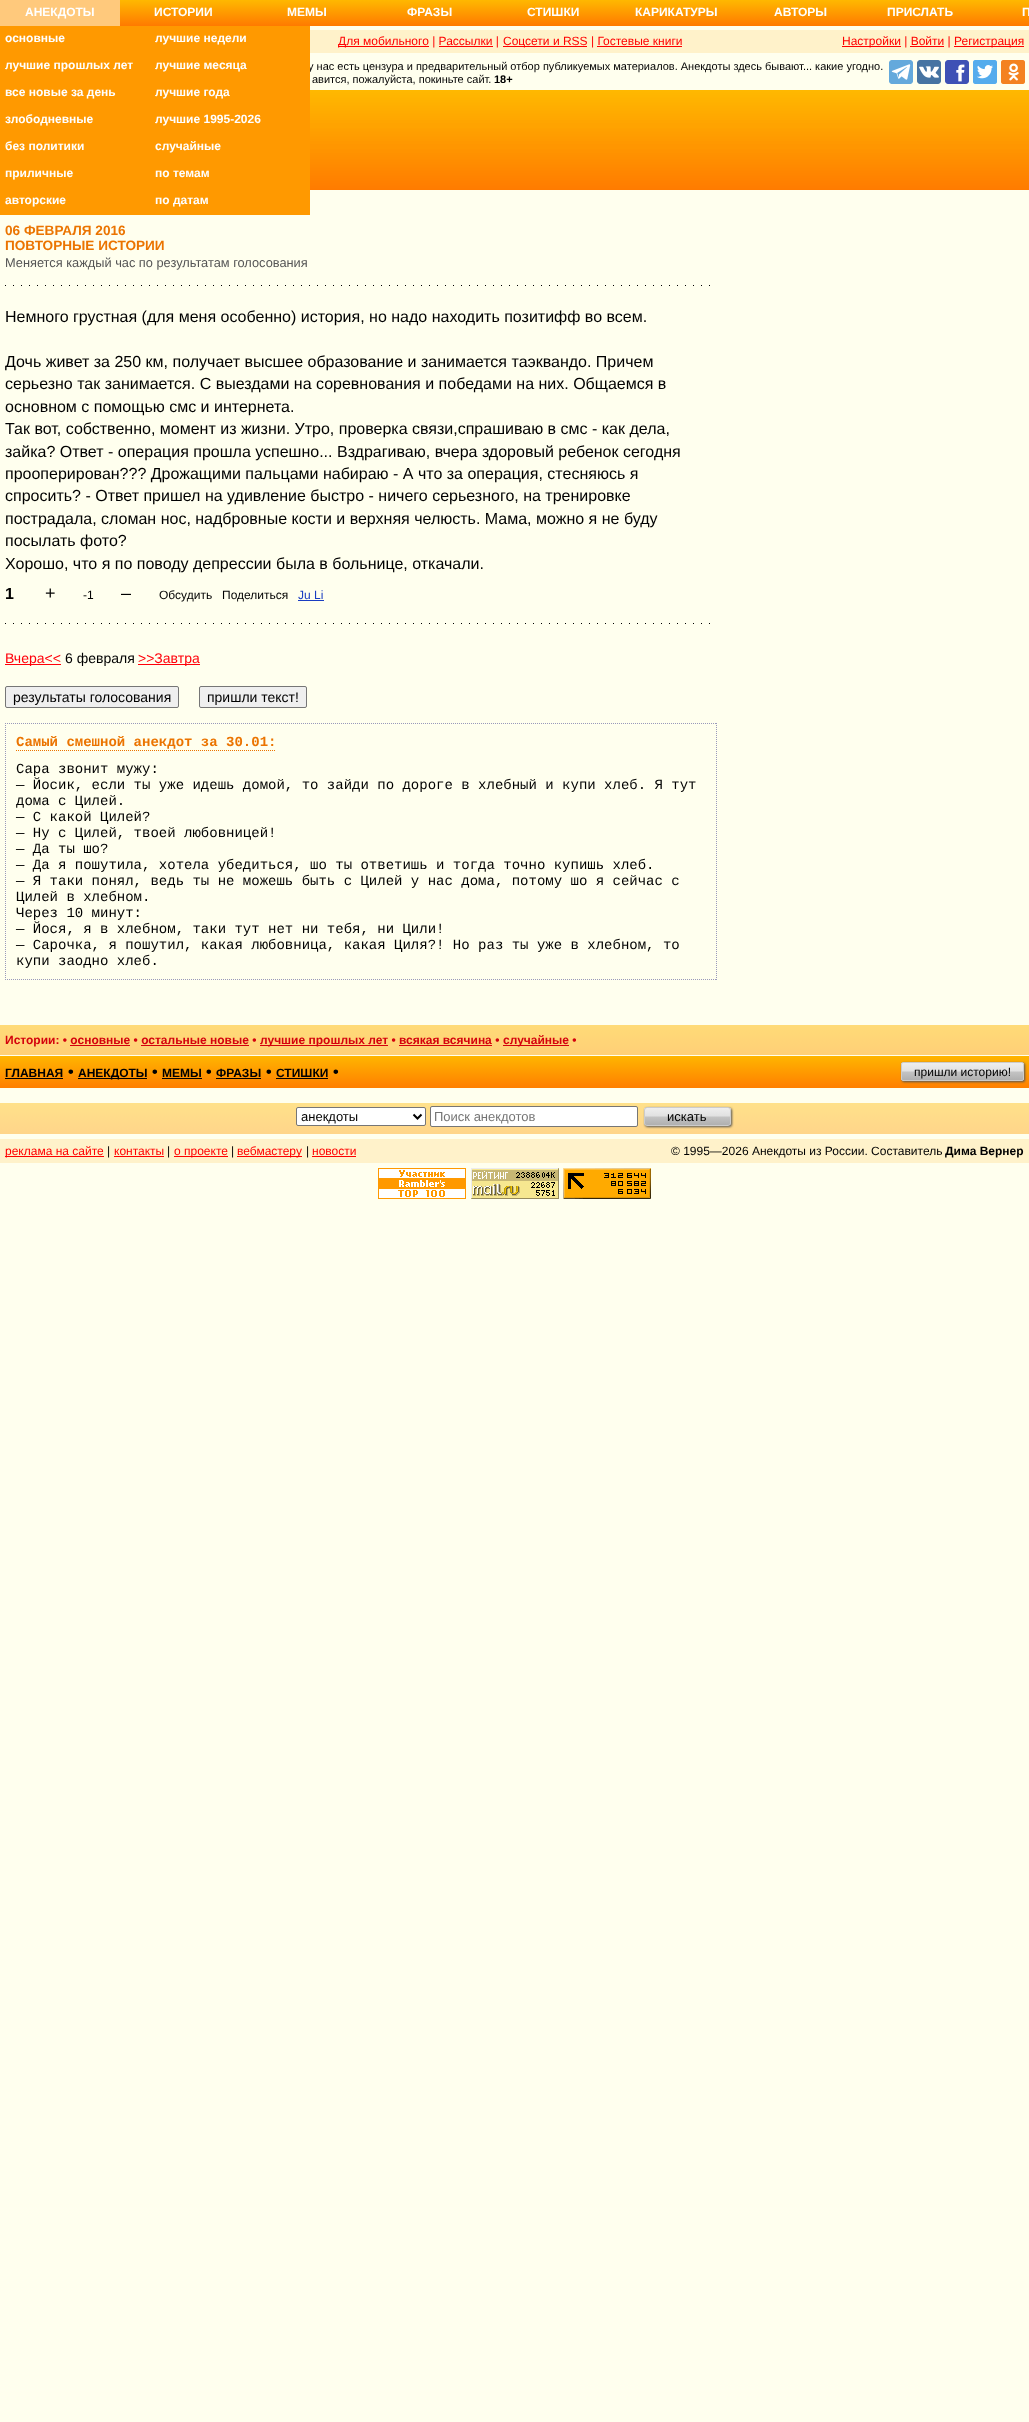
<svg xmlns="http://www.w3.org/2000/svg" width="1029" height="2422">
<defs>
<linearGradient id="g1" gradientUnits="userSpaceOnUse" x1="515" y1="0" x2="515" y2="26"><stop offset="0" stop-color="#ffb800"/><stop offset="1" stop-color="#ff7a00"/></linearGradient>
<linearGradient id="g2" gradientUnits="userSpaceOnUse" x1="515" y1="1025" x2="515" y2="1055"><stop offset="0" stop-color="#ffdb77"/><stop offset="1" stop-color="#ffcf77"/></linearGradient>
<linearGradient id="g3" gradientUnits="userSpaceOnUse" x1="515" y1="1056" x2="515" y2="1088"><stop offset="0" stop-color="#ffb500"/><stop offset="1" stop-color="#ff7f00"/></linearGradient>
<clipPath id="clip1"><rect x="901" y="1062" width="123" height="19" rx="2"/></clipPath>
<linearGradient id="g4" gradientUnits="userSpaceOnUse" x1="963" y1="1063" x2="963" y2="1080"><stop offset="0" stop-color="#eee"/><stop offset="0.49" stop-color="#e1e1e1"/><stop offset="0.51" stop-color="#c4c4c4"/><stop offset="1" stop-color="#b0b0b0"/></linearGradient>
<linearGradient id="g5" gradientUnits="userSpaceOnUse" x1="515" y1="1103" x2="515" y2="1134"><stop offset="0" stop-color="#ffe18a"/><stop offset="1" stop-color="#ffd58a"/></linearGradient>
<clipPath id="clip2"><rect x="644" y="1107" width="87" height="19" rx="3"/></clipPath>
<linearGradient id="g6" gradientUnits="userSpaceOnUse" x1="688" y1="1108" x2="688" y2="1125"><stop offset="0" stop-color="#eee"/><stop offset="0.49" stop-color="#e1e1e1"/><stop offset="0.51" stop-color="#c4c4c4"/><stop offset="1" stop-color="#b0b0b0"/></linearGradient>
</defs>
<rect width="100%" height="100%" fill="#ffe"/>
<rect x="120" width="909" height="26" fill="url(#g1)"/>
<rect width="120" height="26" fill="#ffc97c"/>
<text x="25" y="16" style="font-family:Liberation Sans;font-size:12px;font-weight:bold;fill:#fff">АНЕКДОТЫ</text>
<rect y="26" width="150" height="189" fill="#f90"/>
<text x="5" y="42" style="font-family:Liberation Sans;font-size:12px;font-weight:bold;fill:#fff">основные</text>
<text x="5" y="69" style="font-family:Liberation Sans;font-size:12px;font-weight:bold;fill:#fff">лучшие прошлых лет</text>
<text x="5" y="96" style="font-family:Liberation Sans;font-size:12px;font-weight:bold;fill:#fff">все новые за день</text>
<text x="5" y="123" style="font-family:Liberation Sans;font-size:12px;font-weight:bold;fill:#fff">злободневные</text>
<text x="5" y="150" style="font-family:Liberation Sans;font-size:12px;font-weight:bold;fill:#fff">без политики</text>
<text x="5" y="177" style="font-family:Liberation Sans;font-size:12px;font-weight:bold;fill:#fff">приличные</text>
<text x="5" y="204" style="font-family:Liberation Sans;font-size:12px;font-weight:bold;fill:#fff">авторские</text>
<text x="308" y="70" style="font-family:Liberation Sans;font-size:11px;fill:#000">у нас есть цензура и предварительный отбор публикуемых материалов. Анекдоты здесь бывают... какие угодно.</text>
<rect x="150" y="26" width="160" height="189" fill="#f90"/>
<text x="155" y="42" style="font-family:Liberation Sans;font-size:12px;font-weight:bold;fill:#fff">лучшие недели</text>
<text x="155" y="69" style="font-family:Liberation Sans;font-size:12px;font-weight:bold;fill:#fff">лучшие месяца</text>
<text x="155" y="96" style="font-family:Liberation Sans;font-size:12px;font-weight:bold;fill:#fff">лучшие года</text>
<text x="155" y="123" style="font-family:Liberation Sans;font-size:12px;font-weight:bold;fill:#fff">лучшие 1995-2026</text>
<text x="155" y="150" style="font-family:Liberation Sans;font-size:12px;font-weight:bold;fill:#fff">случайные</text>
<text x="155" y="177" style="font-family:Liberation Sans;font-size:12px;font-weight:bold;fill:#fff">по темам</text>
<text x="155" y="204" style="font-family:Liberation Sans;font-size:12px;font-weight:bold;fill:#fff">по датам</text>
<text x="154" y="16" style="font-family:Liberation Sans;font-size:12px;font-weight:bold;fill:#fff">ИСТОРИИ</text>
<text x="287" y="16" style="font-family:Liberation Sans;font-size:12px;font-weight:bold;fill:#fff">МЕМЫ</text>
<text x="407" y="16" style="font-family:Liberation Sans;font-size:12px;font-weight:bold;fill:#fff">ФРАЗЫ</text>
<text x="527" y="16" style="font-family:Liberation Sans;font-size:12px;font-weight:bold;fill:#fff">СТИШКИ</text>
<text x="635" y="16" style="font-family:Liberation Sans;font-size:12px;font-weight:bold;fill:#fff">КАРИКАТУРЫ</text>
<text x="774" y="16" style="font-family:Liberation Sans;font-size:12px;font-weight:bold;fill:#fff">АВТОРЫ</text>
<text x="887" y="16" style="font-family:Liberation Sans;font-size:12px;font-weight:bold;fill:#fff">ПРИСЛАТЬ</text>
<text x="1022" y="16" style="font-family:Liberation Sans;font-size:12px;font-weight:bold;fill:#fff">П</text>
<rect x="310" y="30" width="719" height="23" fill="#fff2ca"/>
<rect x="338" y="46" width="91" height="1" fill="#f00"/>
<text x="338" y="45" style="font-family:Liberation Sans;font-size:12px;fill:#f00">Для мобильного | Рассылки |</text>
<rect x="503" y="46" width="84" height="1" fill="#f00"/>
<text x="503" y="45" style="font-family:Liberation Sans;font-size:12px;fill:#f00">Соцсети и RSS | Гостевые книги</text>
<rect x="842" y="46" width="59" height="1" fill="#f00"/>
<text x="842" y="45" style="font-family:Liberation Sans;font-size:12px;fill:#f00">Настройки | Войти |</text>
<rect x="954" y="46" width="70" height="1" fill="#f00"/>
<text x="954" y="45" style="font-family:Liberation Sans;font-size:12px;fill:#f00">Регистрация</text>
<rect x="910" y="46" width="34" height="1" fill="#f00"/>
<rect x="439" y="46" width="54" height="1" fill="#f00"/>
<rect x="597" y="46" width="85" height="1" fill="#f00"/>
<image x="310" y="90" width="719" height="100" href="media/1.png"/>
<text x="312" y="83" style="font-family:Liberation Sans;font-size:11px;fill:#000">авится, пожалуйста, покиньте сайт.</text>
<text x="494" y="83" style="font-family:Liberation Sans;font-size:11px;font-weight:bold;fill:#000">18+</text>
<image x="889" y="60" width="24" height="24" href="media/2.png"/>
<image x="917" y="60" width="24" height="24" href="media/3.png"/>
<image x="945" y="60" width="24" height="24" href="media/4.png"/>
<image x="973" y="60" width="24" height="24" href="media/5.png"/>
<image x="1001" y="60" width="24" height="24" href="media/6.png"/>
<image x="5" y="285" width="705" height="1" href="media/7.png"/>
<text x="5" y="235" style="font-family:Liberation Sans;font-size:13.6px;font-weight:bold;fill:#eb7400">06 ФЕВРАЛЯ 2016</text>
<text x="5" y="250" style="font-family:Liberation Sans;font-size:13.6px;font-weight:bold;fill:#eb7400">ПОВТОРНЫЕ ИСТОРИИ</text>
<text x="5" y="267" style="font-family:Liberation Sans;font-size:12.8px;fill:#555">Меняется каждый час по результатам голосования</text>
<image x="5" y="623" width="705" height="1" href="media/7.png"/>
<text x="5" y="322" style="font-family:Liberation Sans;font-size:16px;fill:#000">Немного грустная (для меня особенно) история, но надо находить позитифф во всем.</text>
<text x="5" y="367" style="font-family:Liberation Sans;font-size:16px;fill:#000">Дочь живет за 250 км, получает высшее образование и занимается таэквандо. Причем</text>
<text x="5" y="389" style="font-family:Liberation Sans;font-size:16px;fill:#000">серьезно так занимается. С выездами на соревнования и победами на них. Общаемся в</text>
<text x="5" y="412" style="font-family:Liberation Sans;font-size:16px;fill:#000">основном с помощью смс и интернета.</text>
<text x="5" y="434" style="font-family:Liberation Sans;font-size:16px;fill:#000">Так вот, собственно, момент из жизни. Утро, проверка связи,спрашиваю в смс - как дела,</text>
<text x="5" y="457" style="font-family:Liberation Sans;font-size:16px;fill:#000">зайка? Ответ - операция прошла успешно... Вздрагиваю, вчера здоровый ребенок сегодня</text>
<text x="5" y="479" style="font-family:Liberation Sans;font-size:16px;fill:#000">прооперирован??? Дрожащими пальцами набираю - А что за операция, стесняюсь я</text>
<text x="5" y="501" style="font-family:Liberation Sans;font-size:16px;fill:#000">спросить? - Ответ пришел на удивление быстро - ничего серьезного, на тренировке</text>
<text x="5" y="524" style="font-family:Liberation Sans;font-size:16px;fill:#000">пострадала, сломан нос, надбровные кости и верхняя челюсть. Мама, можно я не буду</text>
<text x="5" y="546" style="font-family:Liberation Sans;font-size:16px;fill:#000">посылать фото?</text>
<text x="5" y="569" style="font-family:Liberation Sans;font-size:16px;fill:#000">Хорошо, что я по поводу депрессии была в больнице, откачали.</text>
<text x="5" y="599" style="font-family:Liberation Sans;font-size:16px;font-weight:bold;fill:#000">1</text>
<text x="45" y="599" style="font-family:Liberation Sans;font-size:18px;fill:#000">+</text>
<text x="83" y="599" style="font-family:Liberation Sans;font-size:12px;fill:#000">-1</text>
<text x="121" y="599" style="font-family:Liberation Sans;font-size:18px;fill:#000">–</text>
<text x="159" y="599" style="font-family:Liberation Sans;font-size:12px;fill:#000">Обсудить</text>
<text x="222" y="599" style="font-family:Liberation Sans;font-size:12px;fill:#000">Поделиться</text>
<text x="298" y="599" style="font-family:Liberation Sans;font-size:12px;fill:#1a3dc1">Ju Li</text>
<rect x="298" y="600" width="26" height="1" fill="#1a3dc1"/>
<rect x="5" y="664" width="56" height="1" fill="#ff000a"/>
<text x="5" y="663" style="font-family:Liberation Sans;font-size:14px;fill:#ff000a">Вчера&lt;&lt;</text>
<text x="65" y="663" style="font-family:Liberation Sans;font-size:14px;fill:#000">6 февраля</text>
<rect x="138" y="664" width="62" height="1" fill="#ff000a"/>
<text x="138" y="663" style="font-family:Liberation Sans;font-size:14px;fill:#ff000a">&gt;&gt;Завтра</text>
<rect x="5.5" y="686.5" width="173" height="21" rx="1.5" fill="#efefef" stroke="#767676"/>
<text x="13" y="702" style="font-family:Liberation Sans;font-size:14px;fill:#000">результаты голосования</text>
<rect x="199.5" y="686.5" width="107" height="21" rx="1.5" fill="#efefef" stroke="#767676"/>
<text x="207" y="702" style="font-family:Liberation Sans;font-size:14px;fill:#000">пришли текст!</text>
<path d="M5 723.5h712" fill="none" stroke="#99b" stroke-dasharray="1 1"/>
<path d="M716.5 723v257" fill="none" stroke="#99b" stroke-dasharray="1 1"/>
<path d="M5 979.5h712" fill="none" stroke="#99b" stroke-dasharray="1 1"/>
<path d="M5.5 723v257" fill="none" stroke="#99b" stroke-dasharray="1 1"/>
<path d="M16 750.5h260" fill="none" stroke="#eb7400" stroke-dasharray="1 1"/>
<text x="16" y="746" style="font-family:Liberation Mono;font-size:14px;font-weight:bold;fill:#eb7400">Самый смешной анекдот за 30.01:</text>
<text x="16" y="773" style="font-family:Liberation Mono;font-size:14px;fill:#000">Сара звонит мужу:</text>
<text x="16" y="789" style="font-family:Liberation Mono;font-size:14px;fill:#000">— Йосик, если ты уже идешь домой, то зайди по дороге в хлебный и купи хлеб. Я тут</text>
<text x="16" y="805" style="font-family:Liberation Mono;font-size:14px;fill:#000">дома с Цилей.</text>
<text x="16" y="821" style="font-family:Liberation Mono;font-size:14px;fill:#000">— С какой Цилей?</text>
<text x="16" y="837" style="font-family:Liberation Mono;font-size:14px;fill:#000">— Ну с Цилей, твоей любовницей!</text>
<text x="16" y="853" style="font-family:Liberation Mono;font-size:14px;fill:#000">— Да ты шо?</text>
<text x="16" y="869" style="font-family:Liberation Mono;font-size:14px;fill:#000">— Да я пошутила, хотела убедиться, шо ты ответишь и тогда точно купишь хлеб.</text>
<text x="16" y="885" style="font-family:Liberation Mono;font-size:14px;fill:#000">— Я таки понял, ведь ты не можешь быть с Цилей у нас дома, потому шо я сейчас с</text>
<text x="16" y="901" style="font-family:Liberation Mono;font-size:14px;fill:#000">Цилей в хлебном.</text>
<text x="16" y="917" style="font-family:Liberation Mono;font-size:14px;fill:#000">Через 10 минут:</text>
<text x="16" y="933" style="font-family:Liberation Mono;font-size:14px;fill:#000">— Йося, я в хлебном, таки тут нет ни тебя, ни Цили!</text>
<text x="16" y="949" style="font-family:Liberation Mono;font-size:14px;fill:#000">— Сарочка, я пошутил, какая любовница, какая Циля?! Но раз ты уже в хлебном, то</text>
<text x="16" y="965" style="font-family:Liberation Mono;font-size:14px;fill:#000">купи заодно хлеб.</text>
<rect y="1025" width="1029" height="30" fill="url(#g2)"/>
<text x="5" y="1044" style="font-family:Liberation Sans;font-size:12px;font-weight:bold;fill:#d4020d">Истории: • основные • остальные новые •</text>
<rect x="260" y="1045" width="128" height="1" fill="#d4020d"/>
<text x="260" y="1044" style="font-family:Liberation Sans;font-size:12px;font-weight:bold;fill:#d4020d">лучшие прошлых лет • всякая всячина •</text>
<rect x="503" y="1045" width="66" height="1" fill="#d4020d"/>
<text x="503" y="1044" style="font-family:Liberation Sans;font-size:12px;font-weight:bold;fill:#d4020d">случайные •</text>
<rect x="70" y="1045" width="60" height="1" fill="#d4020d"/>
<rect x="141" y="1045" width="108" height="1" fill="#d4020d"/>
<rect x="399" y="1045" width="93" height="1" fill="#d4020d"/>
<rect y="1056" width="1029" height="32" fill="url(#g3)"/>
<text x="5" y="1077" style="font-family:Liberation Sans;font-size:12px;font-weight:bold;fill:#000">ГЛАВНАЯ</text>
<rect x="5" y="1078" width="58" height="1" fill="#000"/>
<text x="68" y="1077" style="font-family:Liberation Sans;font-size:16px;font-weight:bold;fill:#000">•</text>
<rect x="78" y="1078" width="69" height="1" fill="#000"/>
<text x="78" y="1077" style="font-family:Liberation Sans;font-size:12px;font-weight:bold;fill:#000">АНЕКДОТЫ</text>
<text x="152" y="1077" style="font-family:Liberation Sans;font-size:16px;font-weight:bold;fill:#000">•</text>
<text x="162" y="1077" style="font-family:Liberation Sans;font-size:12px;font-weight:bold;fill:#000">МЕМЫ</text>
<rect x="162" y="1078" width="40" height="1" fill="#000"/>
<text x="206" y="1077" style="font-family:Liberation Sans;font-size:16px;font-weight:bold;fill:#000">•</text>
<text x="216" y="1077" style="font-family:Liberation Sans;font-size:12px;font-weight:bold;fill:#000">ФРАЗЫ</text>
<rect x="216" y="1078" width="45" height="1" fill="#000"/>
<text x="266" y="1077" style="font-family:Liberation Sans;font-size:16px;font-weight:bold;fill:#000">•</text>
<text x="276" y="1077" style="font-family:Liberation Sans;font-size:12px;font-weight:bold;fill:#000">СТИШКИ</text>
<rect x="276" y="1078" width="52" height="1" fill="#000"/>
<text x="333" y="1077" style="font-family:Liberation Sans;font-size:16px;font-weight:bold;fill:#000">•</text>
<rect x="902" y="1063" width="123" height="19" rx="2" fill="#555" filter="blur(1px)"/>
<g clip-path="url(#clip1)">
<rect x="901" y="1063" width="123" height="17" fill="url(#g4)"/>
</g>
<rect x="901.5" y="1062.5" width="122" height="18" rx="1.5" fill="none" stroke="#ccc"/>
<text x="914" y="1076" style="font-family:Liberation Sans;font-size:12px;fill:#000">пришли историю!</text>
<rect y="1103" width="1029" height="31" fill="url(#g5)"/>
<rect x="296.5" y="1107.5" width="129" height="18" rx="1.5" fill="#fff" stroke="#767676"/>
<path d="M413.5 1114.5l4 4l4-4" fill="none" stroke="#000" stroke-width="2"/>
<text x="301" y="1121" style="font-family:Liberation Sans;font-size:13px;fill:#000">анекдоты</text>
<rect x="430.5" y="1106.5" width="207" height="20" rx="1.5" fill="#fff" stroke="#767676"/>
<text x="434" y="1121" style="font-family:Liberation Sans;font-size:13px;fill:#757575">Поиск анекдотов</text>
<rect x="645" y="1108" width="87" height="19" rx="3" fill="#555" filter="blur(1px)"/>
<g clip-path="url(#clip2)">
<rect x="644" y="1108" width="87" height="17" fill="url(#g6)"/>
</g>
<rect x="644.5" y="1107.5" width="86" height="18" rx="2.5" fill="none" stroke="#ccc"/>
<text x="667" y="1121" style="font-family:Liberation Sans;font-size:13px;fill:#000">искать</text>
<rect y="1139" width="1029" height="24" fill="#fff2ca"/>
<rect x="5" y="1156" width="99" height="1" fill="#f00"/>
<text x="5" y="1155" style="font-family:Liberation Sans;font-size:12px;fill:#f00">реклама на сайте</text>
<text x="107" y="1155" style="font-family:Liberation Sans;font-size:12px;fill:#000">|</text>
<text x="114" y="1155" style="font-family:Liberation Sans;font-size:12px;fill:#f00">контакты</text>
<rect x="114" y="1156" width="50" height="1" fill="#f00"/>
<text x="167" y="1155" style="font-family:Liberation Sans;font-size:12px;fill:#000">|</text>
<rect x="174" y="1156" width="54" height="1" fill="#f00"/>
<text x="174" y="1155" style="font-family:Liberation Sans;font-size:12px;fill:#f00">о проекте</text>
<text x="231" y="1155" style="font-family:Liberation Sans;font-size:12px;fill:#000">|</text>
<rect x="237" y="1156" width="65" height="1" fill="#f00"/>
<text x="237" y="1155" style="font-family:Liberation Sans;font-size:12px;fill:#f00">вебмастеру</text>
<text x="306" y="1155" style="font-family:Liberation Sans;font-size:12px;fill:#000">|</text>
<text x="312" y="1155" style="font-family:Liberation Sans;font-size:12px;fill:#f00">новости</text>
<rect x="312" y="1156" width="44" height="1" fill="#f00"/>
<text x="671" y="1155" style="font-family:Liberation Sans;font-size:12px;fill:#000">© 1995—2026 Анекдоты из России. Составитель</text>
<text x="945" y="1155" style="font-family:Liberation Sans;font-size:12px;font-weight:bold;fill:#000">Дима Вернер</text>
<image x="378" y="1168" width="88" height="31" href="media/8.png"/>
<image x="471" y="1168" width="88" height="31" href="media/9.png"/>
<image x="563" y="1168" width="88" height="31" href="media/10.png"/>
</svg>
